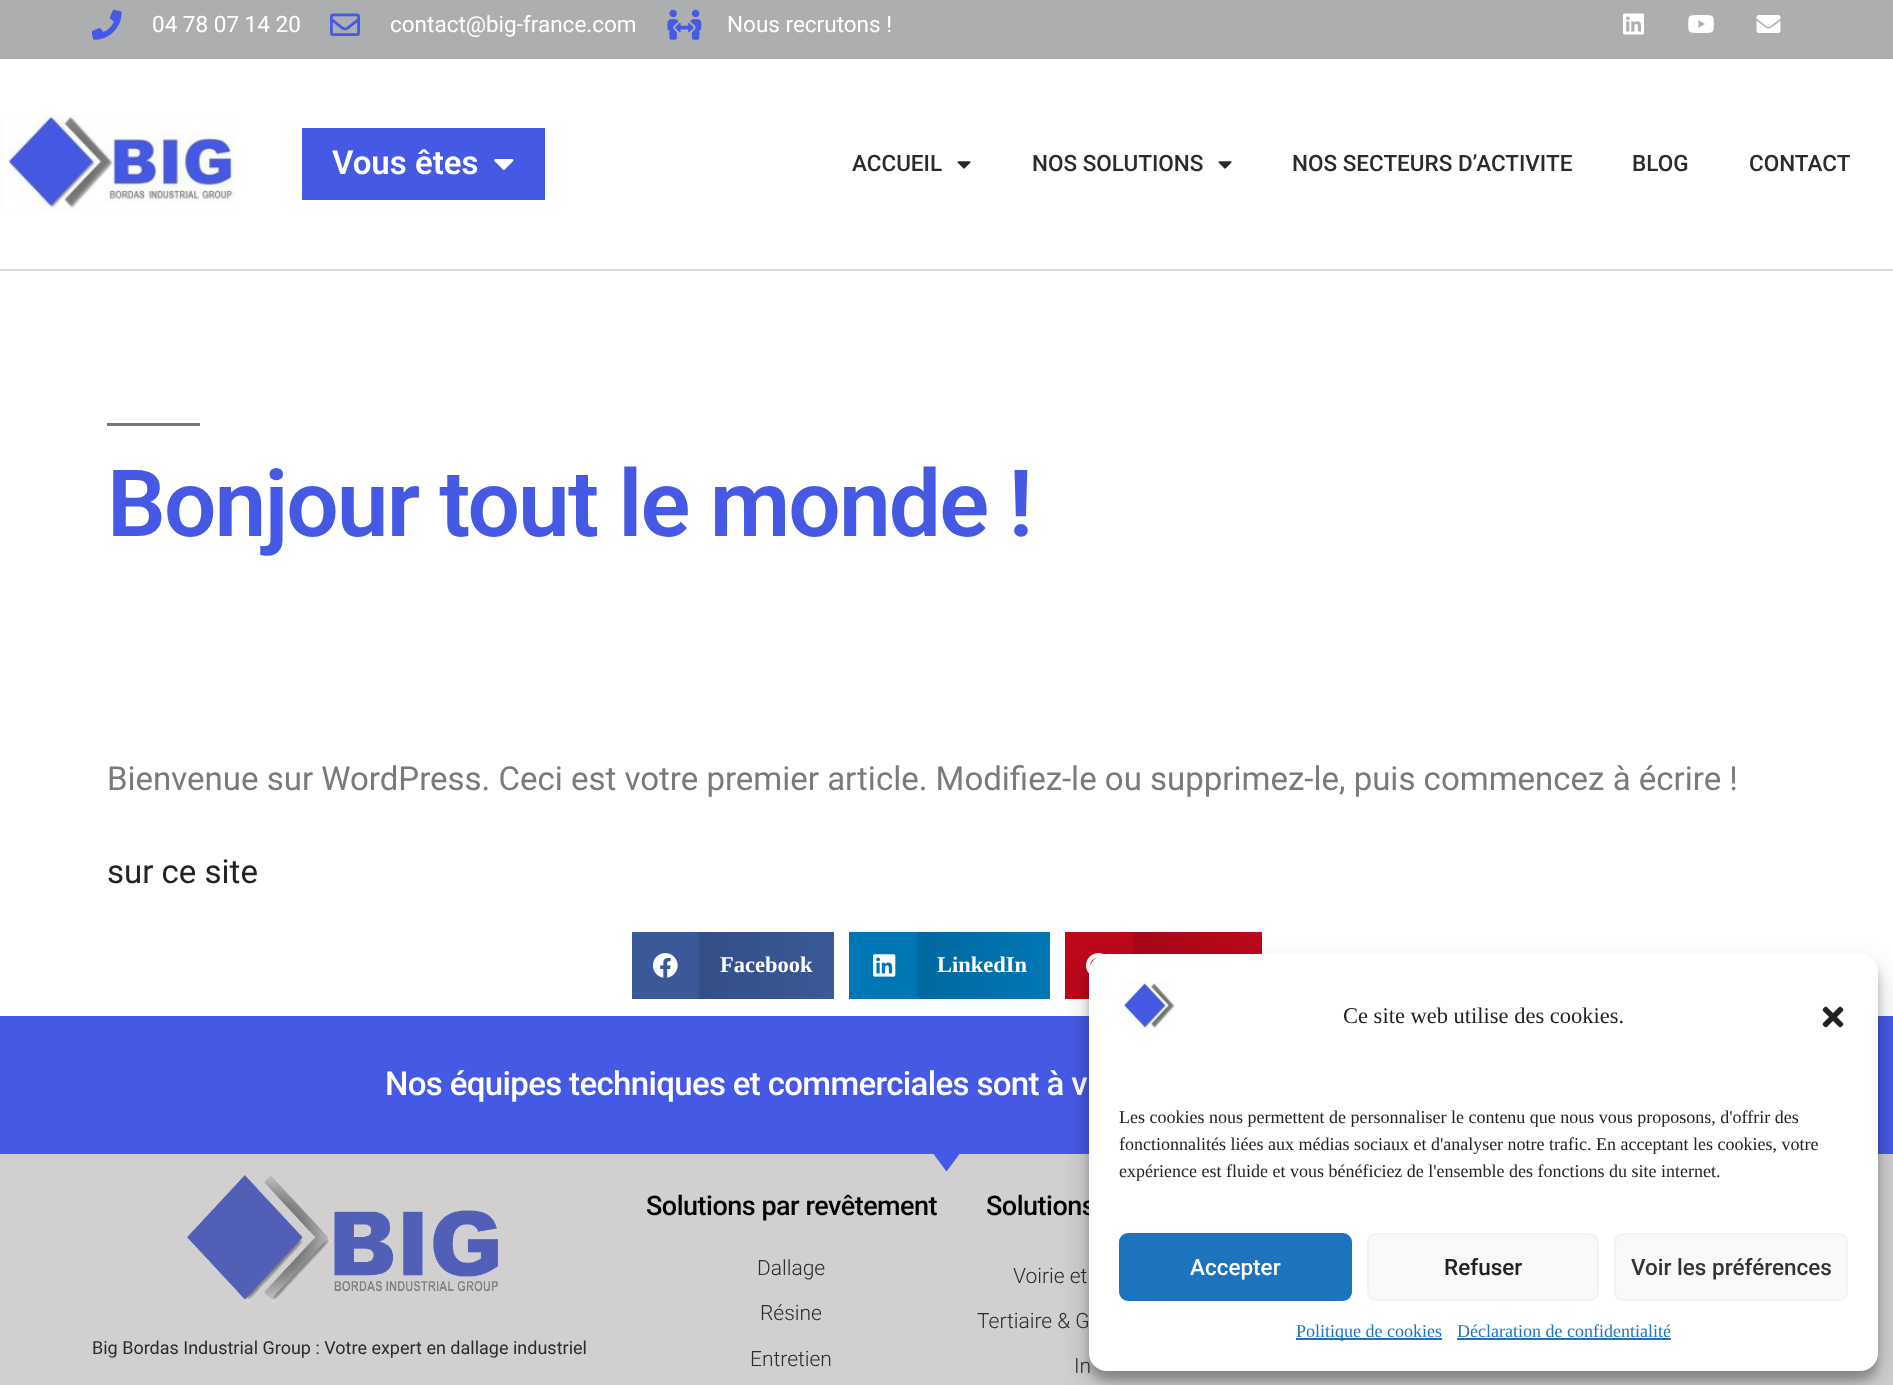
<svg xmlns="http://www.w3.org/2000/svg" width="1893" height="1385">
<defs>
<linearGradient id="g1" gradientUnits="userSpaceOnUse" x1="699" y1="965" x2="834" y2="965"><stop offset="0" stop-color="#344e86"/><stop offset="1" stop-color="#3b5998"/></linearGradient>
<linearGradient id="g2" gradientUnits="userSpaceOnUse" x1="917" y1="965" x2="1050" y2="965"><stop offset="0" stop-color="#00699f"/><stop offset="1" stop-color="#0077b5"/></linearGradient>
<linearGradient id="g3" gradientUnits="userSpaceOnUse" x1="1133" y1="965" x2="1262" y2="965"><stop offset="0" stop-color="#a60719"/><stop offset="1" stop-color="#bd081c"/></linearGradient>
</defs>
<rect width="100%" height="100%" fill="#fff"/>
<rect width="1893" height="59" fill="#acaeaf"/>
<image x="92" y="9" width="30" height="31" href="media/1.png"/>
<text x="152" y="32" style="font-family:Roboto;font-size:22.5px;fill:#fff">04 78 07 14 20</text>
<image x="330" y="13" width="30" height="23" href="media/2.png"/>
<text x="390" y="32" style="font-family:Roboto;font-size:22.5px;fill:#fff">contact@big-france.com</text>
<image x="667" y="9" width="35" height="31" href="media/3.png"/>
<text x="727" y="32" style="font-family:Roboto;font-size:22.5px;fill:#fff">Nous recrutons !</text>
<image x="1623" y="13" width="21" height="22" href="media/4.png"/>
<image x="1688" y="15" width="26" height="18" href="media/5.png"/>
<image x="1756" y="15" width="25" height="18" href="media/6.png"/>
<rect y="269" width="1893" height="2" fill="#d8d8d8"/>
<image x="0" y="115" width="236" height="97" href="media/7.png"/>
<rect x="302" y="128" width="243" height="72" fill="#4659e4"/>
<text x="332" y="174" style="font-family:Roboto;font-size:33px;font-weight:600;fill:#fff">Vous êtes</text>
<image x="494" y="159" width="20" height="11" href="media/8.png"/>
<text x="852" y="171" style="font-family:Roboto;font-size:22.5px;font-weight:500;fill:#2b2b2b">ACCUEIL</text>
<image x="957" y="161" width="14" height="8" href="media/9.png"/>
<text x="1032" y="171" style="font-family:Roboto;font-size:22.5px;font-weight:500;fill:#2b2b2b">NOS SOLUTIONS</text>
<image x="1218" y="161" width="14" height="8" href="media/9.png"/>
<text x="1292" y="171" style="font-family:Roboto;font-size:22.5px;font-weight:500;fill:#2b2b2b">NOS SECTEURS D’ACTIVITE</text>
<text x="1632" y="171" style="font-family:Roboto;font-size:22.5px;font-weight:500;fill:#2b2b2b">BLOG</text>
<text x="1749" y="171" style="font-family:Roboto;font-size:22.5px;font-weight:500;fill:#2b2b2b">CONTACT</text>
<rect x="107" y="423" width="93" height="3" fill="#767676"/>
<text x="107" y="536" style="font-family:Roboto;font-size:92.75px;font-weight:600;letter-spacing:-1.9px;fill:#4659e4">Bonjour tout le monde !</text>
<text x="107" y="790" style="font-family:Roboto;font-size:33px;fill:#7a7a7a">Bienvenue sur WordPress. Ceci est votre premier article. Modifiez-le ou supprimez-le, puis commencez à écrire !</text>
<text x="107" y="883" style="font-family:Roboto;font-size:33px;fill:#222">sur ce site</text>
<rect x="632" y="932" width="67" height="67" fill="#3b5998"/>
<image x="652" y="953" width="26" height="25" href="media/10.png"/>
<rect x="699" y="932" width="135" height="67" fill="url(#g1)"/>
<text x="720" y="972" style="font-family:Liberation Serif;font-size:22.5px;font-weight:bold;fill:#fff">Facebook</text>
<rect x="849" y="932" width="68" height="67" fill="#0077b5"/>
<image x="873" y="954" width="23" height="23" href="media/11.png"/>
<rect x="917" y="932" width="133" height="67" fill="url(#g2)"/>
<text x="937" y="972" style="font-family:Liberation Serif;font-size:22.5px;font-weight:bold;fill:#fff">LinkedIn</text>
<rect x="1065" y="932" width="68" height="67" fill="#bd081c"/>
<rect x="1133" y="932" width="129" height="22" fill="url(#g3)"/>
<image x="1086" y="953" width="19" height="21" href="media/12.png"/>
<rect y="1016" width="1893" height="138" fill="#4659e4"/>
<text x="385" y="1095" style="font-family:Roboto;font-size:33px;font-weight:500;letter-spacing:-0.65px;fill:#fff">Nos équipes techniques et commerciales sont à v</text>
<rect y="1154" width="1893" height="231" fill="#d1cfcf"/>
<path d="M946.5 1171.5l-14.5-19.5h29z" fill="#4659e4"/>
<image x="187" y="1175" width="311" height="128" href="media/13.png"/>
<text x="92" y="1354" style="font-family:Roboto;font-size:18px;fill:#2b2b2b">Big Bordas Industrial Group : Votre expert en dallage industriel</text>
<text x="646" y="1215" style="font-family:Roboto;font-size:27px;font-weight:500;letter-spacing:-0.5px;fill:#000">Solutions par revêtement</text>
<text x="757" y="1275" style="font-family:Roboto;font-size:21px;font-weight:300;fill:#2b2b2b">Dallage</text>
<text x="760" y="1320" style="font-family:Roboto;font-size:21px;font-weight:300;fill:#2b2b2b">Résine</text>
<text x="750" y="1366" style="font-family:Roboto;font-size:21px;font-weight:300;fill:#2b2b2b">Entretien</text>
<text x="986" y="1215" style="font-family:Roboto;font-size:27px;font-weight:500;letter-spacing:-0.5px;fill:#000">Solutions</text>
<text x="1013" y="1283" style="font-family:Roboto;font-size:21px;font-weight:300;fill:#2b2b2b">Voirie et</text>
<text x="977" y="1328" style="font-family:Roboto;font-size:21px;font-weight:300;fill:#2b2b2b">Tertiaire &amp; G</text>
<text x="1074" y="1373" style="font-family:Roboto;font-size:21px;font-weight:300;fill:#2b2b2b">In</text>
<rect x="1089" y="963" width="789" height="417" rx="18" fill="#0000003b" filter="blur(4.5px)"/>
<rect x="1089" y="969" width="789" height="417" rx="18" fill="#00000030" filter="blur(15px)"/>
<rect x="1089" y="954" width="789" height="417" rx="18" fill="#fff"/>
<image x="1120" y="982" width="55" height="48" href="media/14.png"/>
<text x="1343" y="1023" style="font-family:Liberation Serif;font-size:22.5px;fill:#222">Ce site web utilise des cookies.</text>
<image x="1822" y="1006" width="22" height="22" href="media/15.png"/>
<text x="1119" y="1123" style="font-family:Liberation Serif;font-size:18px;fill:#222">Les cookies nous permettent de personnaliser le contenu que nous vous proposons, d'offrir des</text>
<text x="1119" y="1150" style="font-family:Liberation Serif;font-size:18px;fill:#222">fonctionnalités liées aux médias sociaux et d'analyser notre trafic. En acceptant les cookies, votre</text>
<text x="1119" y="1177" style="font-family:Liberation Serif;font-size:18px;fill:#222">expérience est fluide et vous bénéficiez de l'ensemble des fonctions du site internet.</text>
<rect x="1120" y="1234" width="231" height="66" rx="8" fill="#1e73be" stroke="#1e73be" stroke-width="2"/>
<text x="1190" y="1275" style="font-family:Roboto;font-size:22.5px;font-weight:500;fill:#fff">Accepter</text>
<rect x="1368" y="1234" width="230" height="66" rx="8" fill="#f9f9f9" stroke="#f2f2f2" stroke-width="2"/>
<text x="1444" y="1275" style="font-family:Roboto;font-size:22.5px;font-weight:500;fill:#222">Refuser</text>
<rect x="1615" y="1234" width="232" height="66" rx="8" fill="#f9f9f9" stroke="#f2f2f2" stroke-width="2"/>
<text x="1631" y="1275" style="font-family:Roboto;font-size:22.5px;font-weight:500;fill:#333">Voir les préférences</text>
<rect x="1296" y="1338" width="146" height="2" fill="#1e73be"/>
<text x="1296" y="1337" style="font-family:Liberation Serif;font-size:18px;fill:#1e73be">Politique de cookies</text>
<text x="1457" y="1337" style="font-family:Liberation Serif;font-size:18px;fill:#1e73be">Déclaration de confidentialité</text>
<rect x="1457" y="1338" width="214" height="2" fill="#1e73be"/>
</svg>
